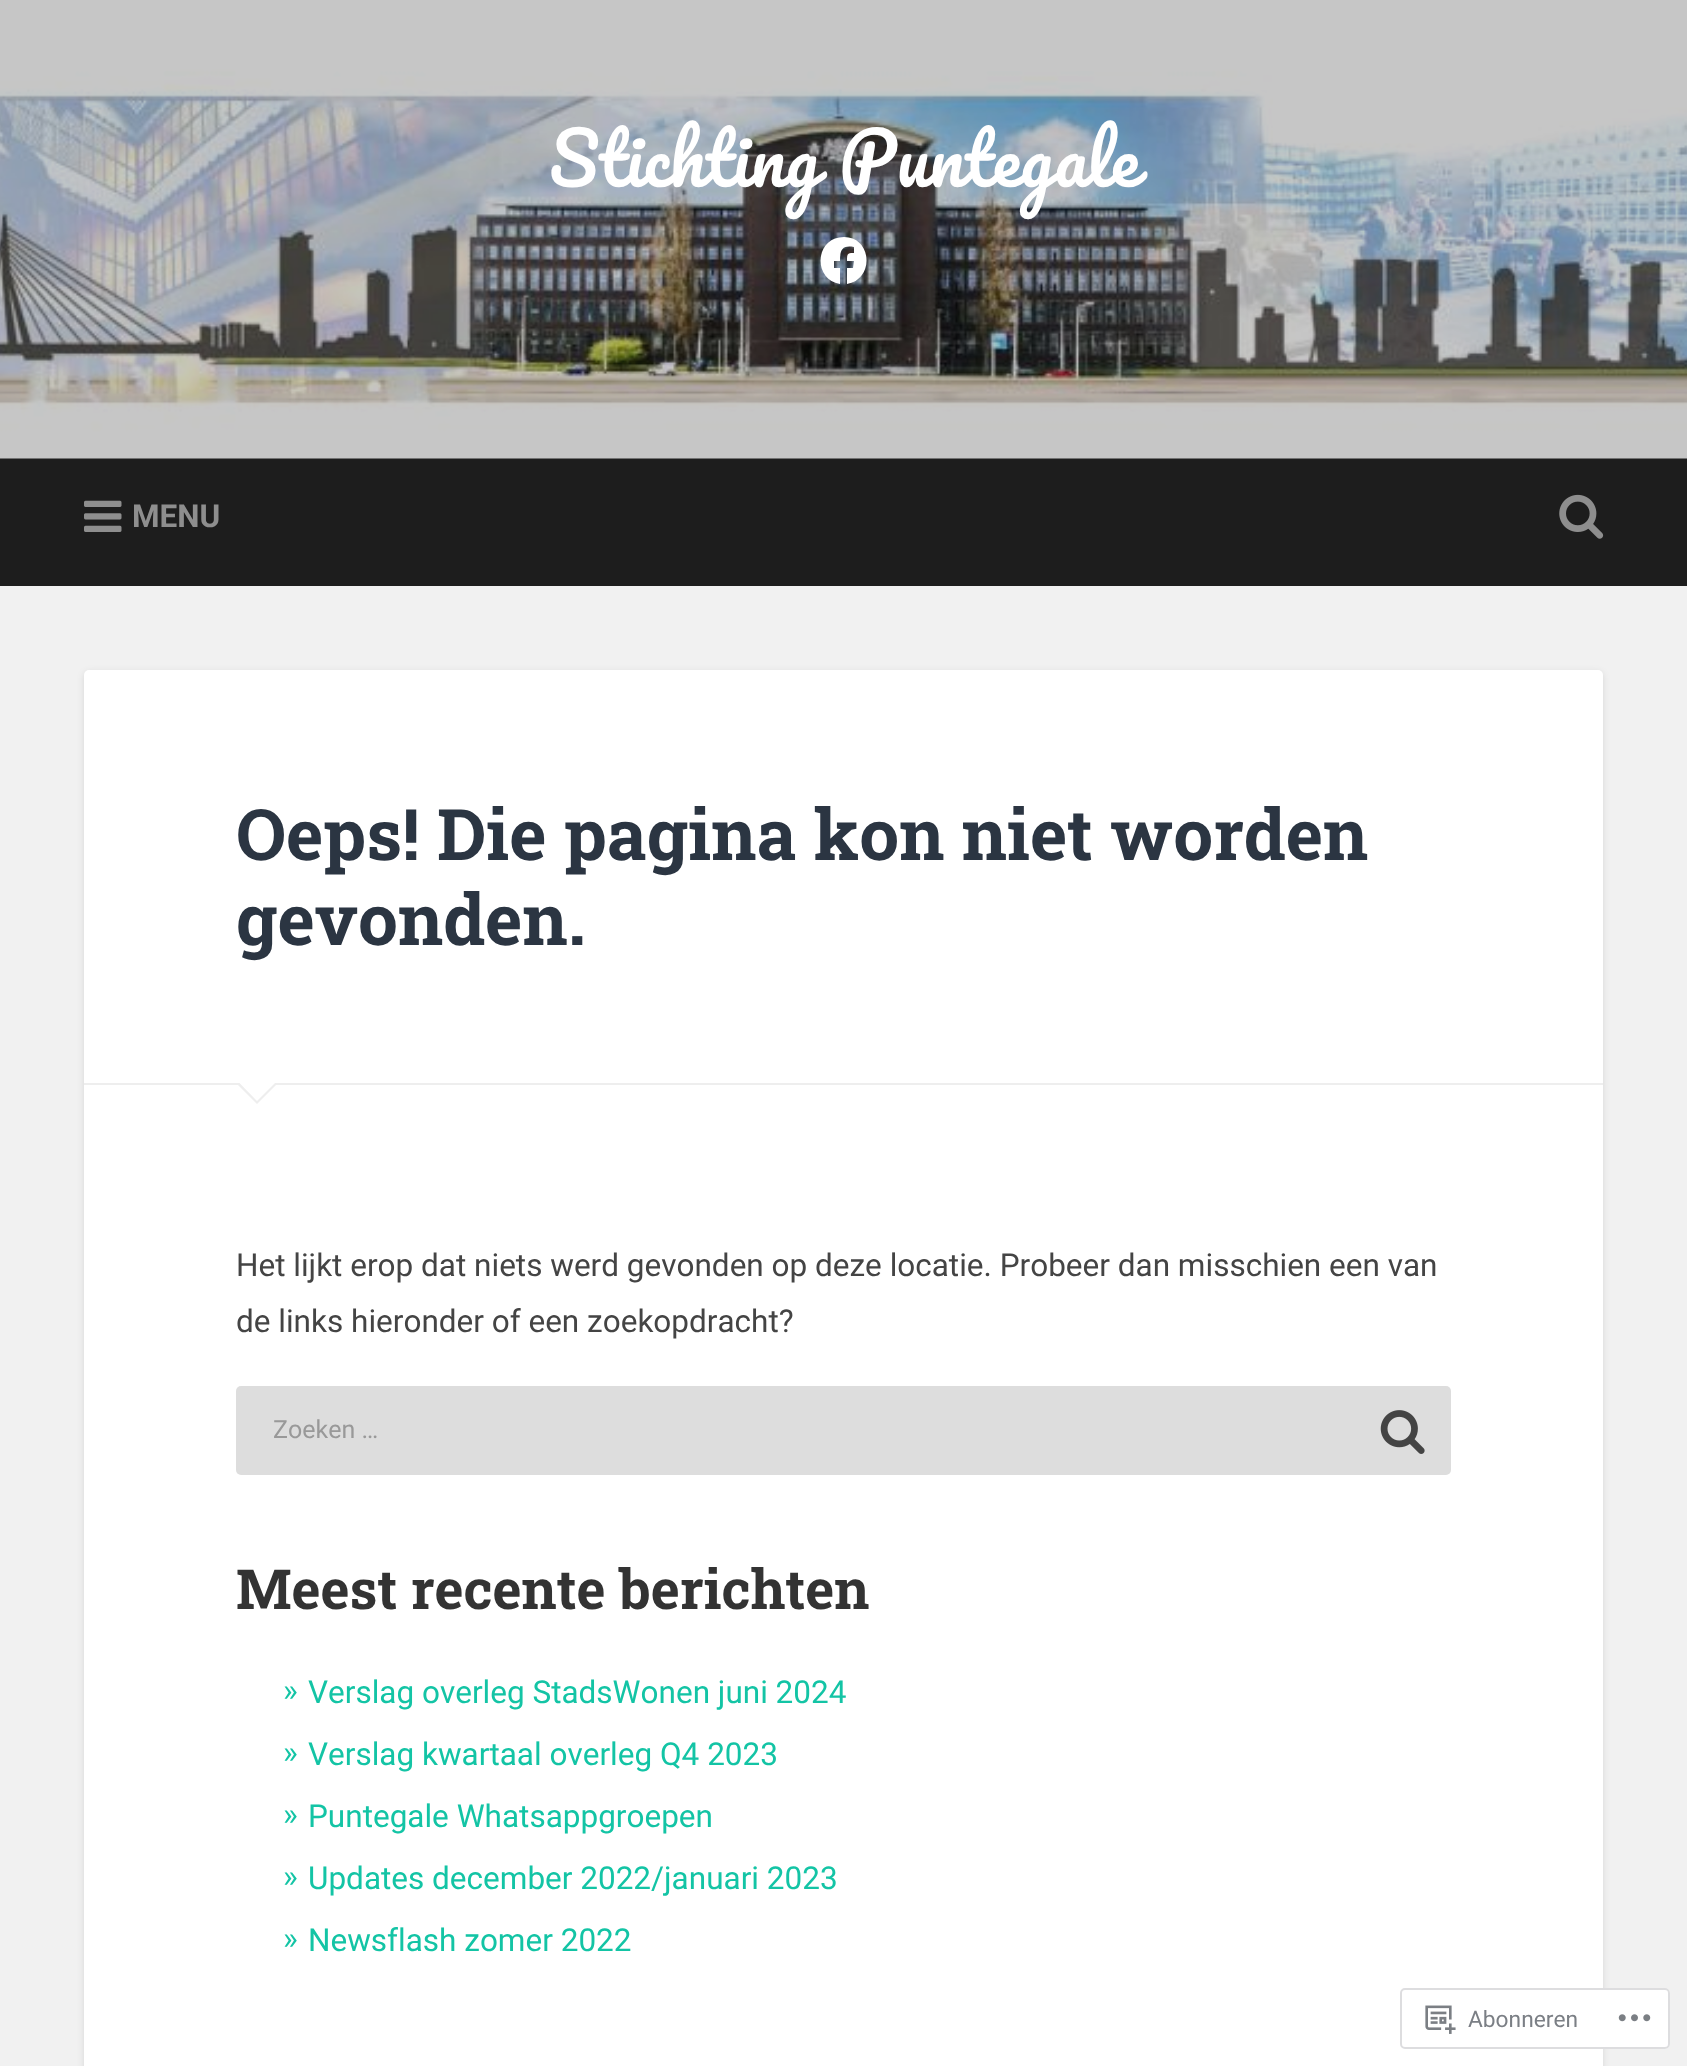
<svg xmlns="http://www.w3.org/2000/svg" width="1687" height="2066">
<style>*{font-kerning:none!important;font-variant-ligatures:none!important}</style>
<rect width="100%" height="100%" fill="#f1f1f1"/>
<rect y="458" width="1687" height="128" fill="#1d1d1d"/>
<image x="0" y="0" width="1687" height="459" href="media/1.png"/>
<text x="549" y="187" word-spacing="1" style="font-family:Pacifico;font-size:70.9px;fill:#fff">Stichting Puntegale</text>
<path d="M844 237c-29 0-32 42-4 47v-16h-6v-7h6c0-11 2-16 14-14v6c-7 0-7 1-7 8h7l-1 7h-6v16c28-5 25-47-3-47z" fill="#fff"/>
<image x="84" y="500" width="38" height="32" href="media/2.png"/>
<text x="132" y="527" style="font-family:Roboto;font-size:31.5px;font-weight:bold;fill:#8e8e8e">MENU</text>
<image x="1559" y="494" width="45" height="45" href="media/3.png"/>
<rect x="84" y="672" width="1519" height="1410" rx="5" fill="#0000001a" filter="blur(3.5px)"/>
<rect x="84" y="670" width="1519" height="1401" rx="5" fill="#fff"/>
<rect x="84" y="1083" width="1519" height="2" fill="#eee"/>
<text x="236" y="860" style="font-family:Roboto Slab;font-size:70.9px;font-weight:bold;fill:#2b3542">Oeps! Die pagina kon niet worden</text>
<text x="236" y="945" style="font-family:Roboto Slab;font-size:70.9px;font-weight:bold;fill:#2b3542">gevonden.</text>
<path d="M236 1083h42l-21 21z" fill="#eee"/>
<path d="M238 1081.5h38.5l-19.5 19.5z" fill="#fff"/>
<text x="236" y="1276" style="font-family:Roboto;font-size:31.5px;fill:#444">Het lijkt erop dat niets werd gevonden op deze locatie. Probeer dan misschien een van</text>
<text x="236" y="1332" style="font-family:Roboto;font-size:31.5px;fill:#444">de links hieronder of een zoekopdracht?</text>
<rect x="236" y="1386" width="1215" height="89" rx="5" fill="#ddd"/>
<text x="273" y="1438" style="font-family:Roboto;font-size:25px;fill:#999">Zoeken …</text>
<image x="1380" y="1410" width="45" height="44" href="media/4.png"/>
<text x="236" y="1609" style="font-family:Roboto Slab;font-size:55.1px;font-weight:bold;fill:#333">Meest recente berichten</text>
<text x="283" y="1701" style="font-family:Roboto;font-size:31.5px;fill:#13c4a5">»</text>
<text x="308" y="1703" style="font-family:Roboto;font-size:31.5px;fill:#13c4a5">Verslag overleg StadsWonen juni 2024</text>
<text x="283" y="1763" style="font-family:Roboto;font-size:31.5px;fill:#13c4a5">»</text>
<text x="308" y="1765" style="font-family:Roboto;font-size:31.5px;fill:#13c4a5">Verslag kwartaal overleg Q4 2023</text>
<text x="283" y="1825" style="font-family:Roboto;font-size:31.5px;fill:#13c4a5">»</text>
<text x="308" y="1827" style="font-family:Roboto;font-size:31.5px;fill:#13c4a5">Puntegale Whatsappgroepen</text>
<text x="283" y="1887" style="font-family:Roboto;font-size:31.5px;fill:#13c4a5">»</text>
<text x="308" y="1889" style="font-family:Roboto;font-size:31.5px;fill:#13c4a5">Updates december 2022/januari 2023</text>
<text x="283" y="1949" style="font-family:Roboto;font-size:31.5px;fill:#13c4a5">»</text>
<text x="308" y="1951" style="font-family:Roboto;font-size:31.5px;fill:#13c4a5">Newsflash zomer 2022</text>
<rect x="1400" y="1988" width="270" height="61" rx="5" fill="#fffffffa"/>
<rect x="1401" y="1989" width="268" height="59" rx="4" fill="none" stroke="#dcdcdefa" stroke-width="2"/>
<image x="1425" y="2005" width="31" height="29" href="media/5.png"/>
<text x="1468" y="2027" style="font-family:Roboto;font-size:22.75px;fill:#7b7f85">Abonneren</text>
<image x="1618" y="2014" width="33" height="8" href="media/6.png"/>
</svg>
